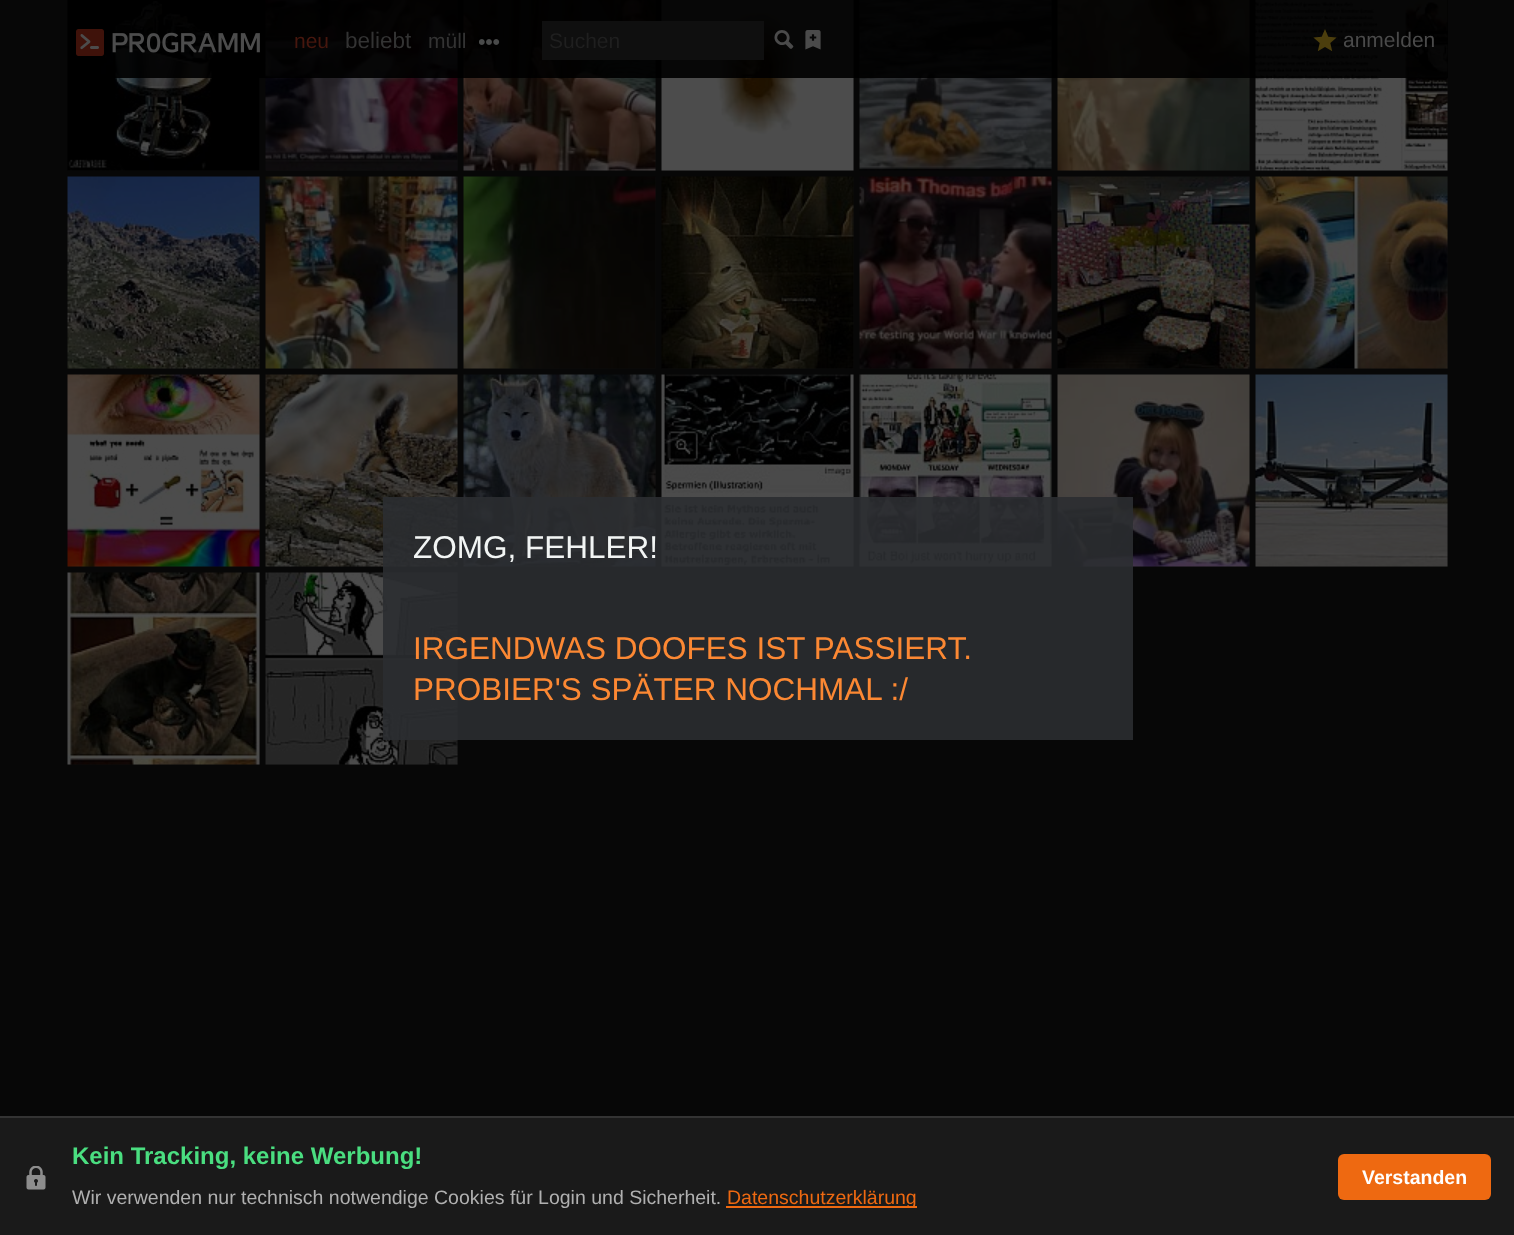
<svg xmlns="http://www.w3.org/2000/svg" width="1514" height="1235">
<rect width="100%" height="100%" fill="#070707"/>
<rect x="68" width="192" height="171" fill="#0a0a0a"/>
<image x="67" y="0" width="193" height="171" href="media/1.png"/>
<rect x="266" width="192" height="171" fill="#0a0a0a"/>
<image x="265" y="0" width="193" height="171" href="media/2.png"/>
<rect x="464" width="192" height="171" fill="#0a0a0a"/>
<image x="463" y="0" width="193" height="171" href="media/3.png"/>
<rect x="662" width="192" height="171" fill="#0a0a0a"/>
<image x="661" y="0" width="193" height="171" href="media/4.png"/>
<rect x="860" width="192" height="171" fill="#0a0a0a"/>
<image x="859" y="0" width="193" height="171" href="media/5.png"/>
<rect x="1058" width="192" height="171" fill="#0a0a0a"/>
<image x="1057" y="0" width="193" height="171" href="media/6.png"/>
<rect x="1256" width="192" height="171" fill="#0a0a0a"/>
<image x="1255" y="0" width="193" height="171" href="media/7.png"/>
<rect x="68" y="177" width="192" height="192" fill="#0a0a0a"/>
<image x="67" y="176" width="193" height="193" href="media/8.png"/>
<rect x="266" y="177" width="192" height="192" fill="#0a0a0a"/>
<image x="265" y="176" width="193" height="193" href="media/9.png"/>
<rect x="464" y="177" width="192" height="192" fill="#0a0a0a"/>
<image x="463" y="176" width="193" height="193" href="media/10.png"/>
<rect x="662" y="177" width="192" height="192" fill="#0a0a0a"/>
<image x="661" y="176" width="193" height="193" href="media/11.png"/>
<rect x="860" y="177" width="192" height="192" fill="#0a0a0a"/>
<image x="859" y="176" width="193" height="193" href="media/12.png"/>
<rect x="1058" y="177" width="192" height="192" fill="#0a0a0a"/>
<image x="1057" y="176" width="193" height="193" href="media/13.png"/>
<rect x="1256" y="177" width="192" height="192" fill="#0a0a0a"/>
<image x="1255" y="176" width="193" height="193" href="media/14.png"/>
<rect x="68" y="375" width="192" height="192" fill="#0a0a0a"/>
<image x="67" y="374" width="193" height="193" href="media/15.png"/>
<rect x="266" y="375" width="192" height="192" fill="#0a0a0a"/>
<image x="265" y="374" width="193" height="193" href="media/16.png"/>
<rect x="464" y="375" width="192" height="192" fill="#0a0a0a"/>
<image x="463" y="374" width="193" height="193" href="media/17.png"/>
<rect x="662" y="375" width="192" height="192" fill="#0a0a0a"/>
<image x="661" y="374" width="193" height="193" href="media/18.png"/>
<rect x="860" y="375" width="192" height="192" fill="#0a0a0a"/>
<image x="859" y="374" width="193" height="193" href="media/19.png"/>
<rect x="1058" y="375" width="192" height="192" fill="#0a0a0a"/>
<image x="1057" y="374" width="193" height="193" href="media/20.png"/>
<rect x="1256" y="375" width="192" height="192" fill="#0a0a0a"/>
<image x="1255" y="374" width="193" height="193" href="media/21.png"/>
<rect x="68" y="573" width="192" height="192" fill="#0a0a0a"/>
<image x="67" y="572" width="193" height="193" href="media/22.png"/>
<rect x="266" y="573" width="192" height="192" fill="#0a0a0a"/>
<image x="265" y="572" width="193" height="193" href="media/23.png"/>
<rect x="113" width="1335" height="78" fill="#000000e6"/>
<image x="76" y="29" width="184" height="27" href="media/24.png"/>
<text x="294" y="48" style="font-family:Liberation Sans;font-size:21px;fill:#47170e">neu</text>
<text x="345" y="48" style="font-family:Liberation Sans;font-size:22.5px;fill:#333">beliebt</text>
<text x="428" y="48" style="font-family:Liberation Sans;font-size:21px;fill:#333">müll</text>
<image x="479" y="39" width="21" height="6" href="media/25.png"/>
<rect x="542" y="21" width="222" height="39" fill="#0f0f0f"/>
<text x="549" y="48" style="font-family:Liberation Sans;font-size:21px;fill:#1f1f1f">Suchen</text>
<text x="773" y="48" style="font-family:'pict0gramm';font-size:21px;font-weight:bold;fill:#4a4a4a">q</text>
<text x="800" y="51" style="font-family:'pict0gramm';font-size:26px;fill:#4a4a4a">h</text>
<text x="1311" y="53" style="font-family:'pict0gramm';font-size:28px;fill:#4c3e0d">U</text>
<text x="1343" y="47" style="font-family:Liberation Sans;font-size:21px;fill:#4a4a4a">anmelden</text>
<rect x="383" y="497" width="750" height="243" fill="#2b2e31e6"/>
<text x="413" y="558" style="font-family:Liberation Sans;font-size:31.5px;fill:#f2f5f4">ZOMG, FEHLER!</text>
<text x="413" y="659" style="font-family:Liberation Sans;font-size:31.5px;fill:#fc8833">IRGENDWAS DOOFES IST PASSIERT.</text>
<text x="413" y="700" style="font-family:Liberation Sans;font-size:31.5px;fill:#fc8833">PROBIER'S SPÄTER NOCHMAL :/</text>
<rect y="1118" width="1514" height="117" fill="#1a1a1a"/>
<rect y="1116" width="1514" height="2" fill="#333"/>
<image x="26" y="1166" width="20" height="24" href="media/26.png"/>
<text x="72" y="1164" style="font-family:Liberation Sans;font-size:24px;font-weight:bold;fill:#4ade80">Kein Tracking, keine Werbung!</text>
<text x="72" y="1204" style="font-family:Liberation Sans;font-size:19.5px;fill:#b0b0b0">Wir verwenden nur technisch notwendige Cookies für Login und Sicherheit.</text>
<rect x="726" y="1206" width="191" height="2" fill="#ee6911"/>
<text x="727" y="1204" style="font-family:Liberation Sans;font-size:19.5px;fill:#ee6911">Datenschutzerklärung</text>
<rect x="1338" y="1154" width="153" height="46" rx="6" fill="#ee6911"/>
<text x="1362" y="1184" style="font-family:Liberation Sans;font-size:19.5px;font-weight:bold;fill:#fff">Verstanden</text>
</svg>
